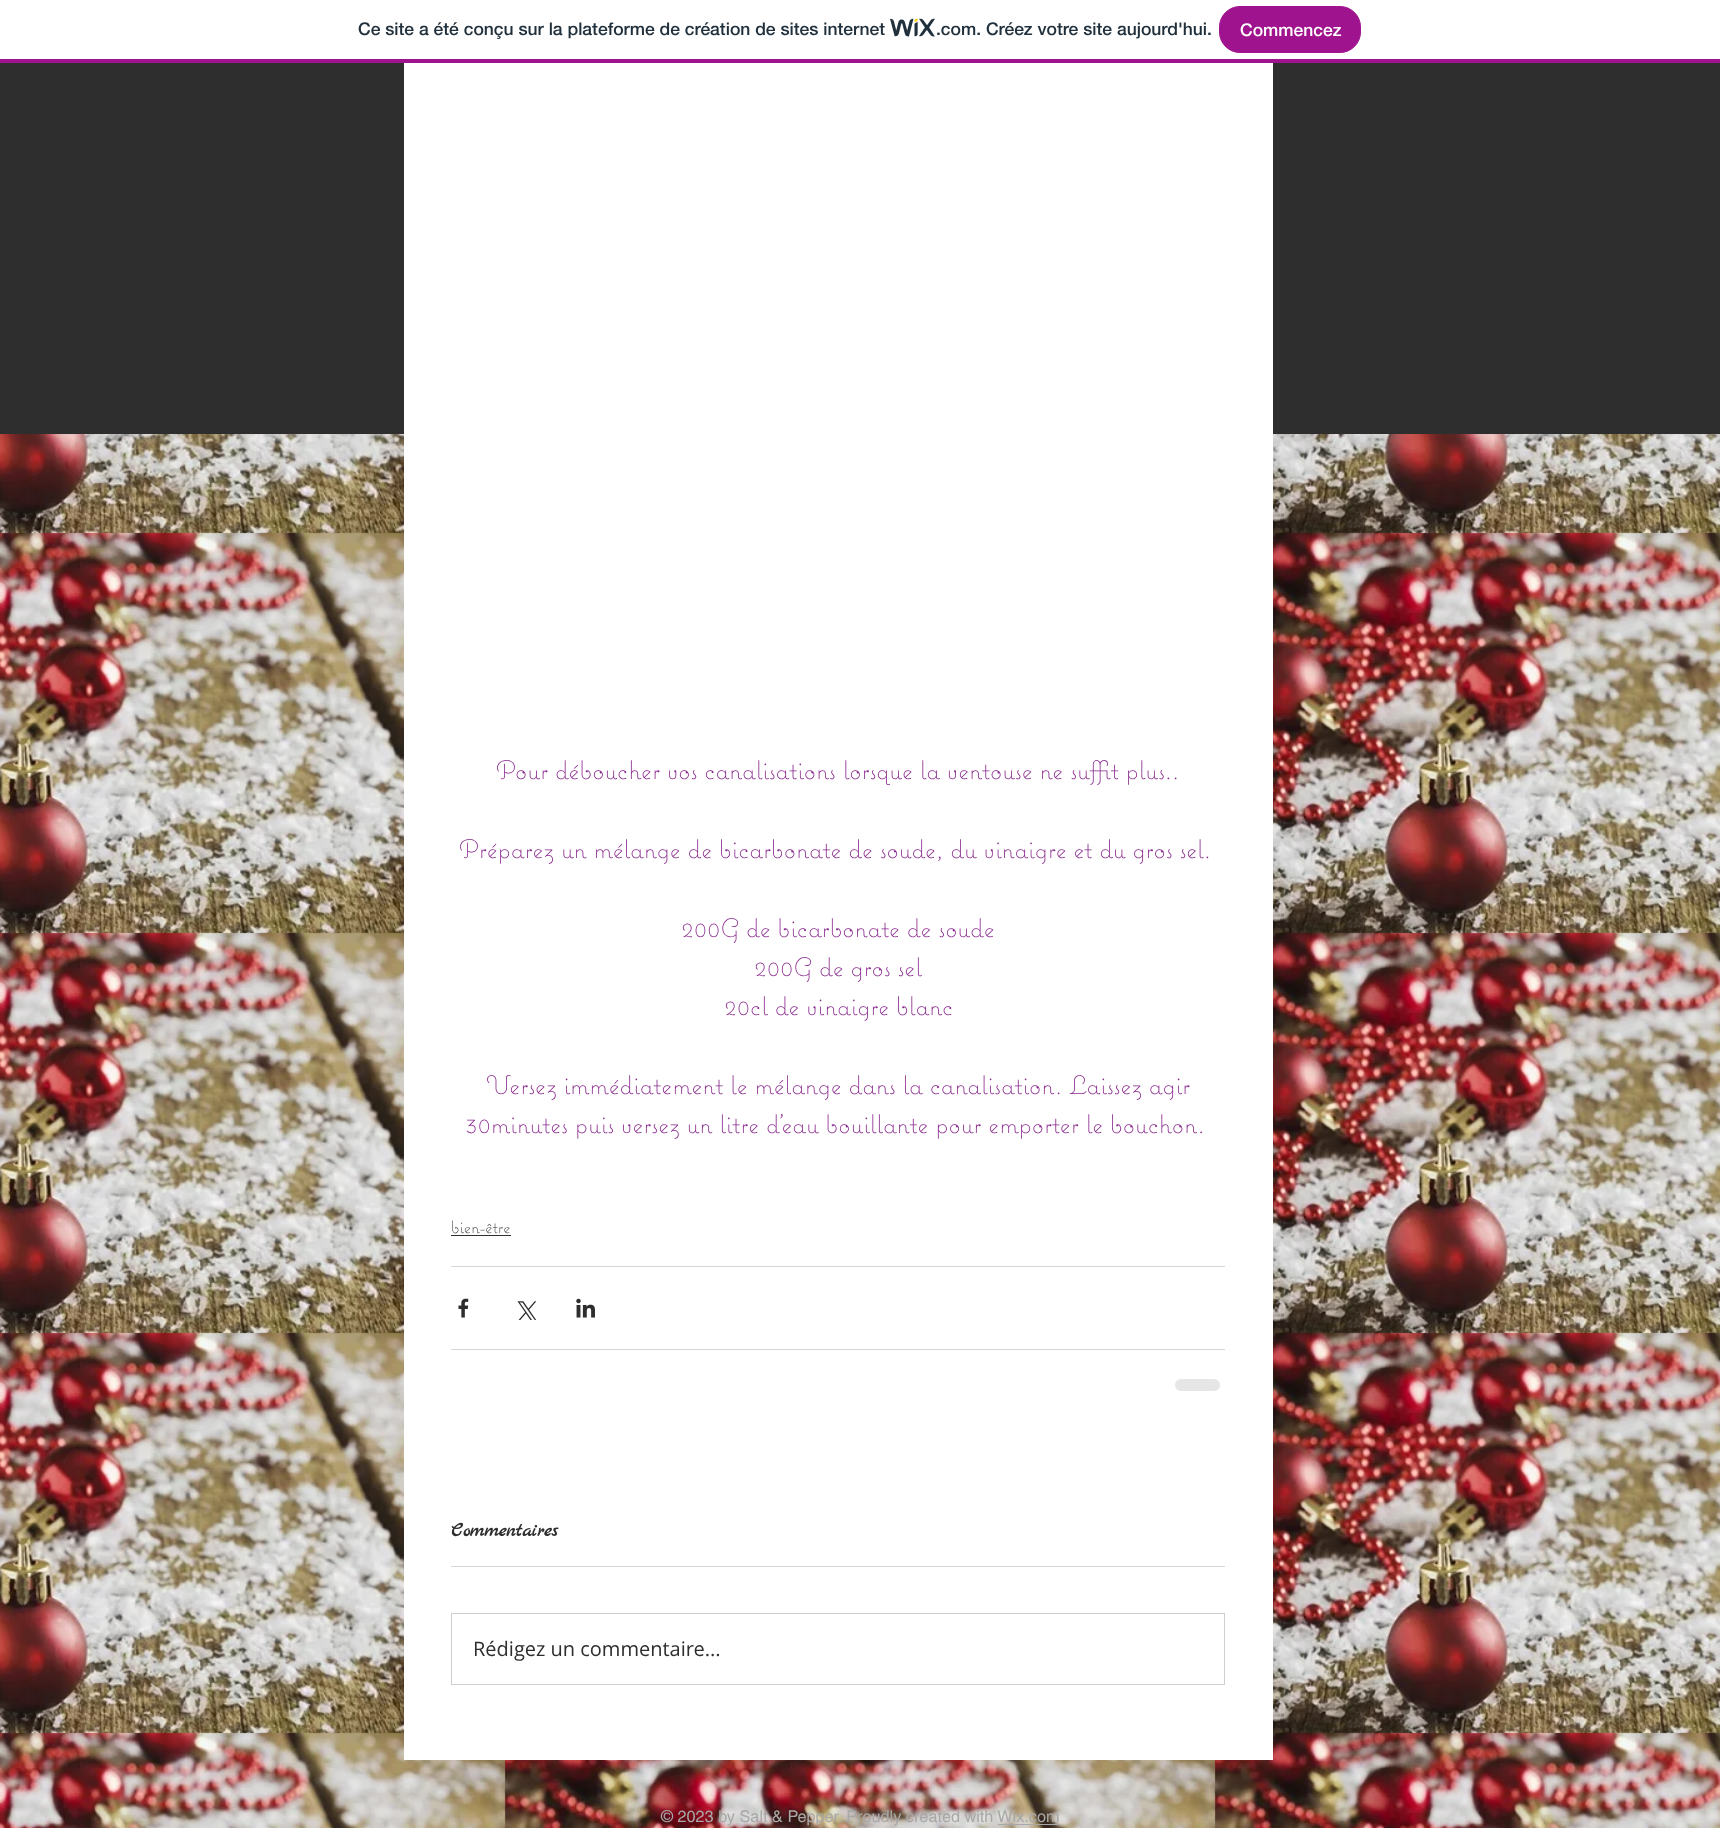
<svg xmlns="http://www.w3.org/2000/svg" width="1720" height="1828">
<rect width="100%" height="100%" fill="#fff"/>
<rect y="59" width="1720" height="4" fill="#a0138e"/>
<text x="358" y="35" style="font-family:'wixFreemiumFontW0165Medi';font-size:17.5px;font-weight:500;fill:#20303c">Ce site a été conçu sur la plateforme de création de sites internet</text>
<image x="890" y="18" width="45" height="19" href="media/1.png"/>
<text x="936" y="35" style="font-family:'wixFreemiumFontW0165Medi';font-size:17.5px;font-weight:500;fill:#20303c">.com. Créez votre site aujourd'hui.</text>
<rect x="1219.5" y="6.5" width="141" height="46" rx="20.5" fill="#a0138e" stroke="#a0138e"/>
<text x="1240" y="36" style="font-family:'wixFreemiumFontW0165Medi';font-size:17.5px;font-weight:500;fill:#fff">Commencez</text>
<image x="0" y="434" width="1720" height="1394" href="media/2.png"/>
<rect y="63" width="1720" height="371" fill="#2f2e2e"/>
<rect x="404" y="63" width="869" height="1697" fill="#fff"/>
<text x="496" y="779" style="font-family:'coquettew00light';font-size:26.25px;font-weight:300;fill:#89298d">Pour déboucher vos canalisations lorsque la ventouse ne suffit plus..</text>
<text x="459" y="858" style="font-family:'coquettew00light';font-size:26.25px;font-weight:300;fill:#89298d">Préparez un mélange de bicarbonate de soude, du vinaigre et du gros sel.</text>
<text x="681" y="937" style="font-family:'coquettew00light';font-size:26.25px;font-weight:300;fill:#89298d">200G de bicarbonate de soude</text>
<text x="754" y="976" style="font-family:'coquettew00light';font-size:26.25px;font-weight:300;fill:#89298d">200G de gros sel</text>
<text x="724" y="1015" style="font-family:'coquettew00light';font-size:26.25px;font-weight:300;fill:#89298d">20cl de vinaigre blanc</text>
<text x="486" y="1094" style="font-family:'coquettew00light';font-size:26.25px;font-weight:300;fill:#89298d">Versez immédiatement le mélange dans la canalisation. Laissez agir</text>
<text x="465" y="1133" style="font-family:'coquettew00light';font-size:26.25px;font-weight:300;fill:#89298d">30minutes puis versez un litre d'eau bouillante pour emporter le bouchon.</text>
<text x="451" y="1233" style="font-family:'coquettew00light';font-size:17.5px;font-weight:300;fill:#2f2e2e">bien-être</text>
<rect x="451" y="1235" width="60" height="1" fill="#2f2e2e"/>
<rect x="451" y="1266" width="774" height="1" fill="#d5d5d5"/>
<image x="458" y="1298" width="11" height="20" href="media/3.png"/>
<image x="517" y="1301" width="19" height="19" href="media/4.png"/>
<image x="576" y="1298" width="19" height="20" href="media/5.png"/>
<rect x="451" y="1349" width="774" height="1" fill="#d5d5d5"/>
<rect x="1175" y="1379" width="45" height="12" rx="6" fill="#e6e6e6"/>
<text x="451" y="1536" style="font-family:Marck Script;font-size:20px;font-weight:bold;fill:#2f2e2e">Commentaires</text>
<rect x="451" y="1566" width="774" height="1" fill="#d5d5d5"/>
<rect x="451.5" y="1613.5" width="773" height="71" fill="none" stroke="#cfcfcf"/>
<text x="473" y="1656" style="font-family:Open Sans;font-size:20px;fill:#2f2e2e">Rédigez un commentaire...</text>
<text x="661" y="1822" style="font-family:helvetica;font-size:16.25px;fill:#a8a8a8">© 2023 by Salt &amp; Pepper. Proudly created with Wix.com</text>
<rect x="998" y="1824" width="62" height="1" fill="#a8a8a8"/>
</svg>
